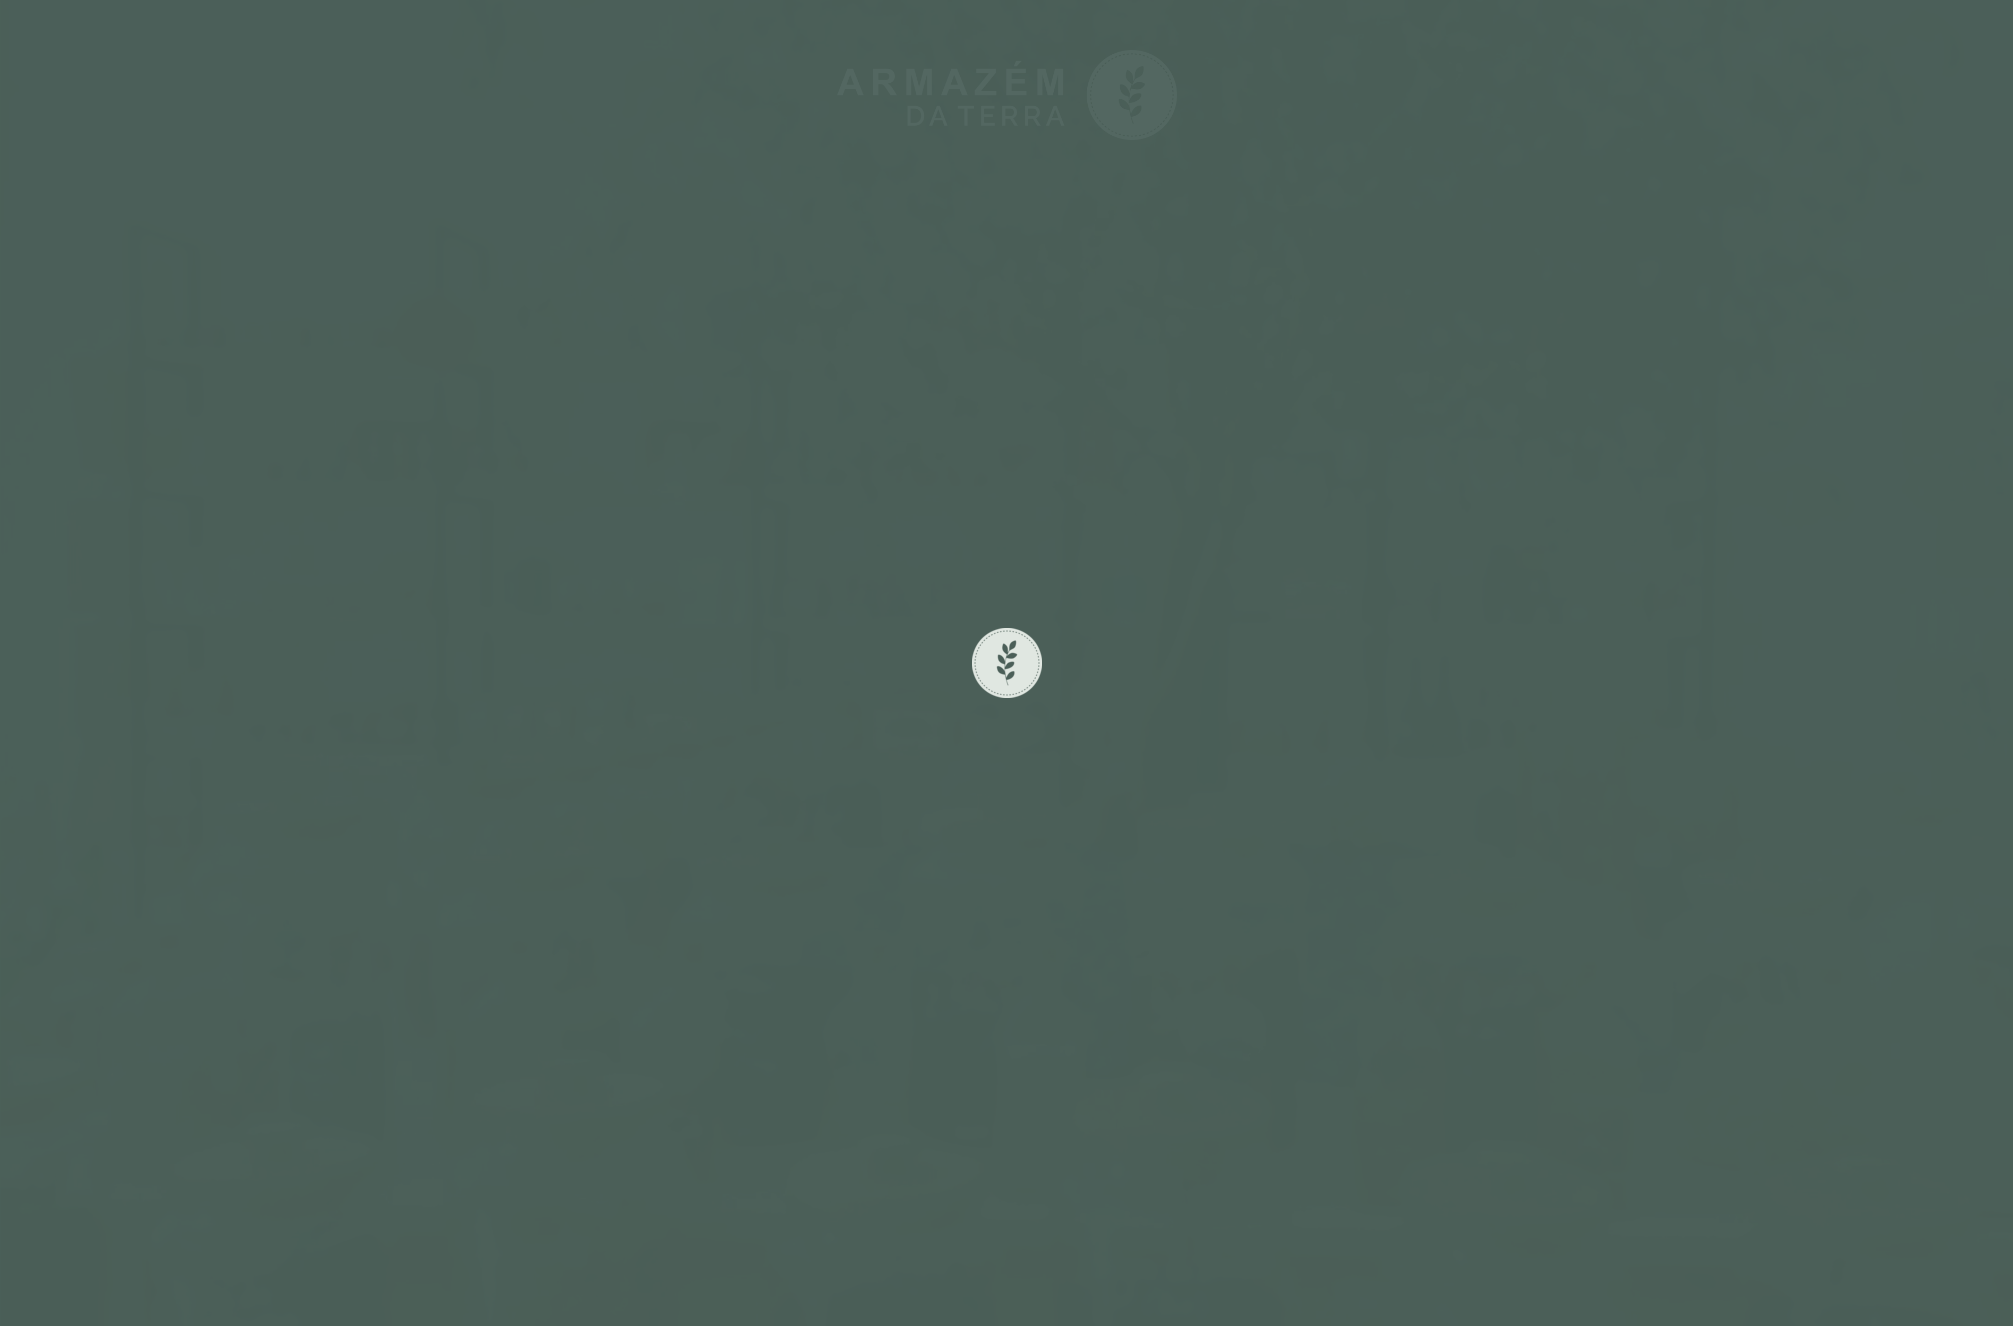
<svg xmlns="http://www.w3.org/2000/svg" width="2013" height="1326">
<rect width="100%" height="100%" fill="#4b6059"/>
<image x="0" y="0" width="2013" height="1326" href="media/1.png"/>
<image x="837" y="50" width="340" height="90" href="media/2.png"/>
<image x="972" y="628" width="70" height="70" href="media/3.png"/>
</svg>
